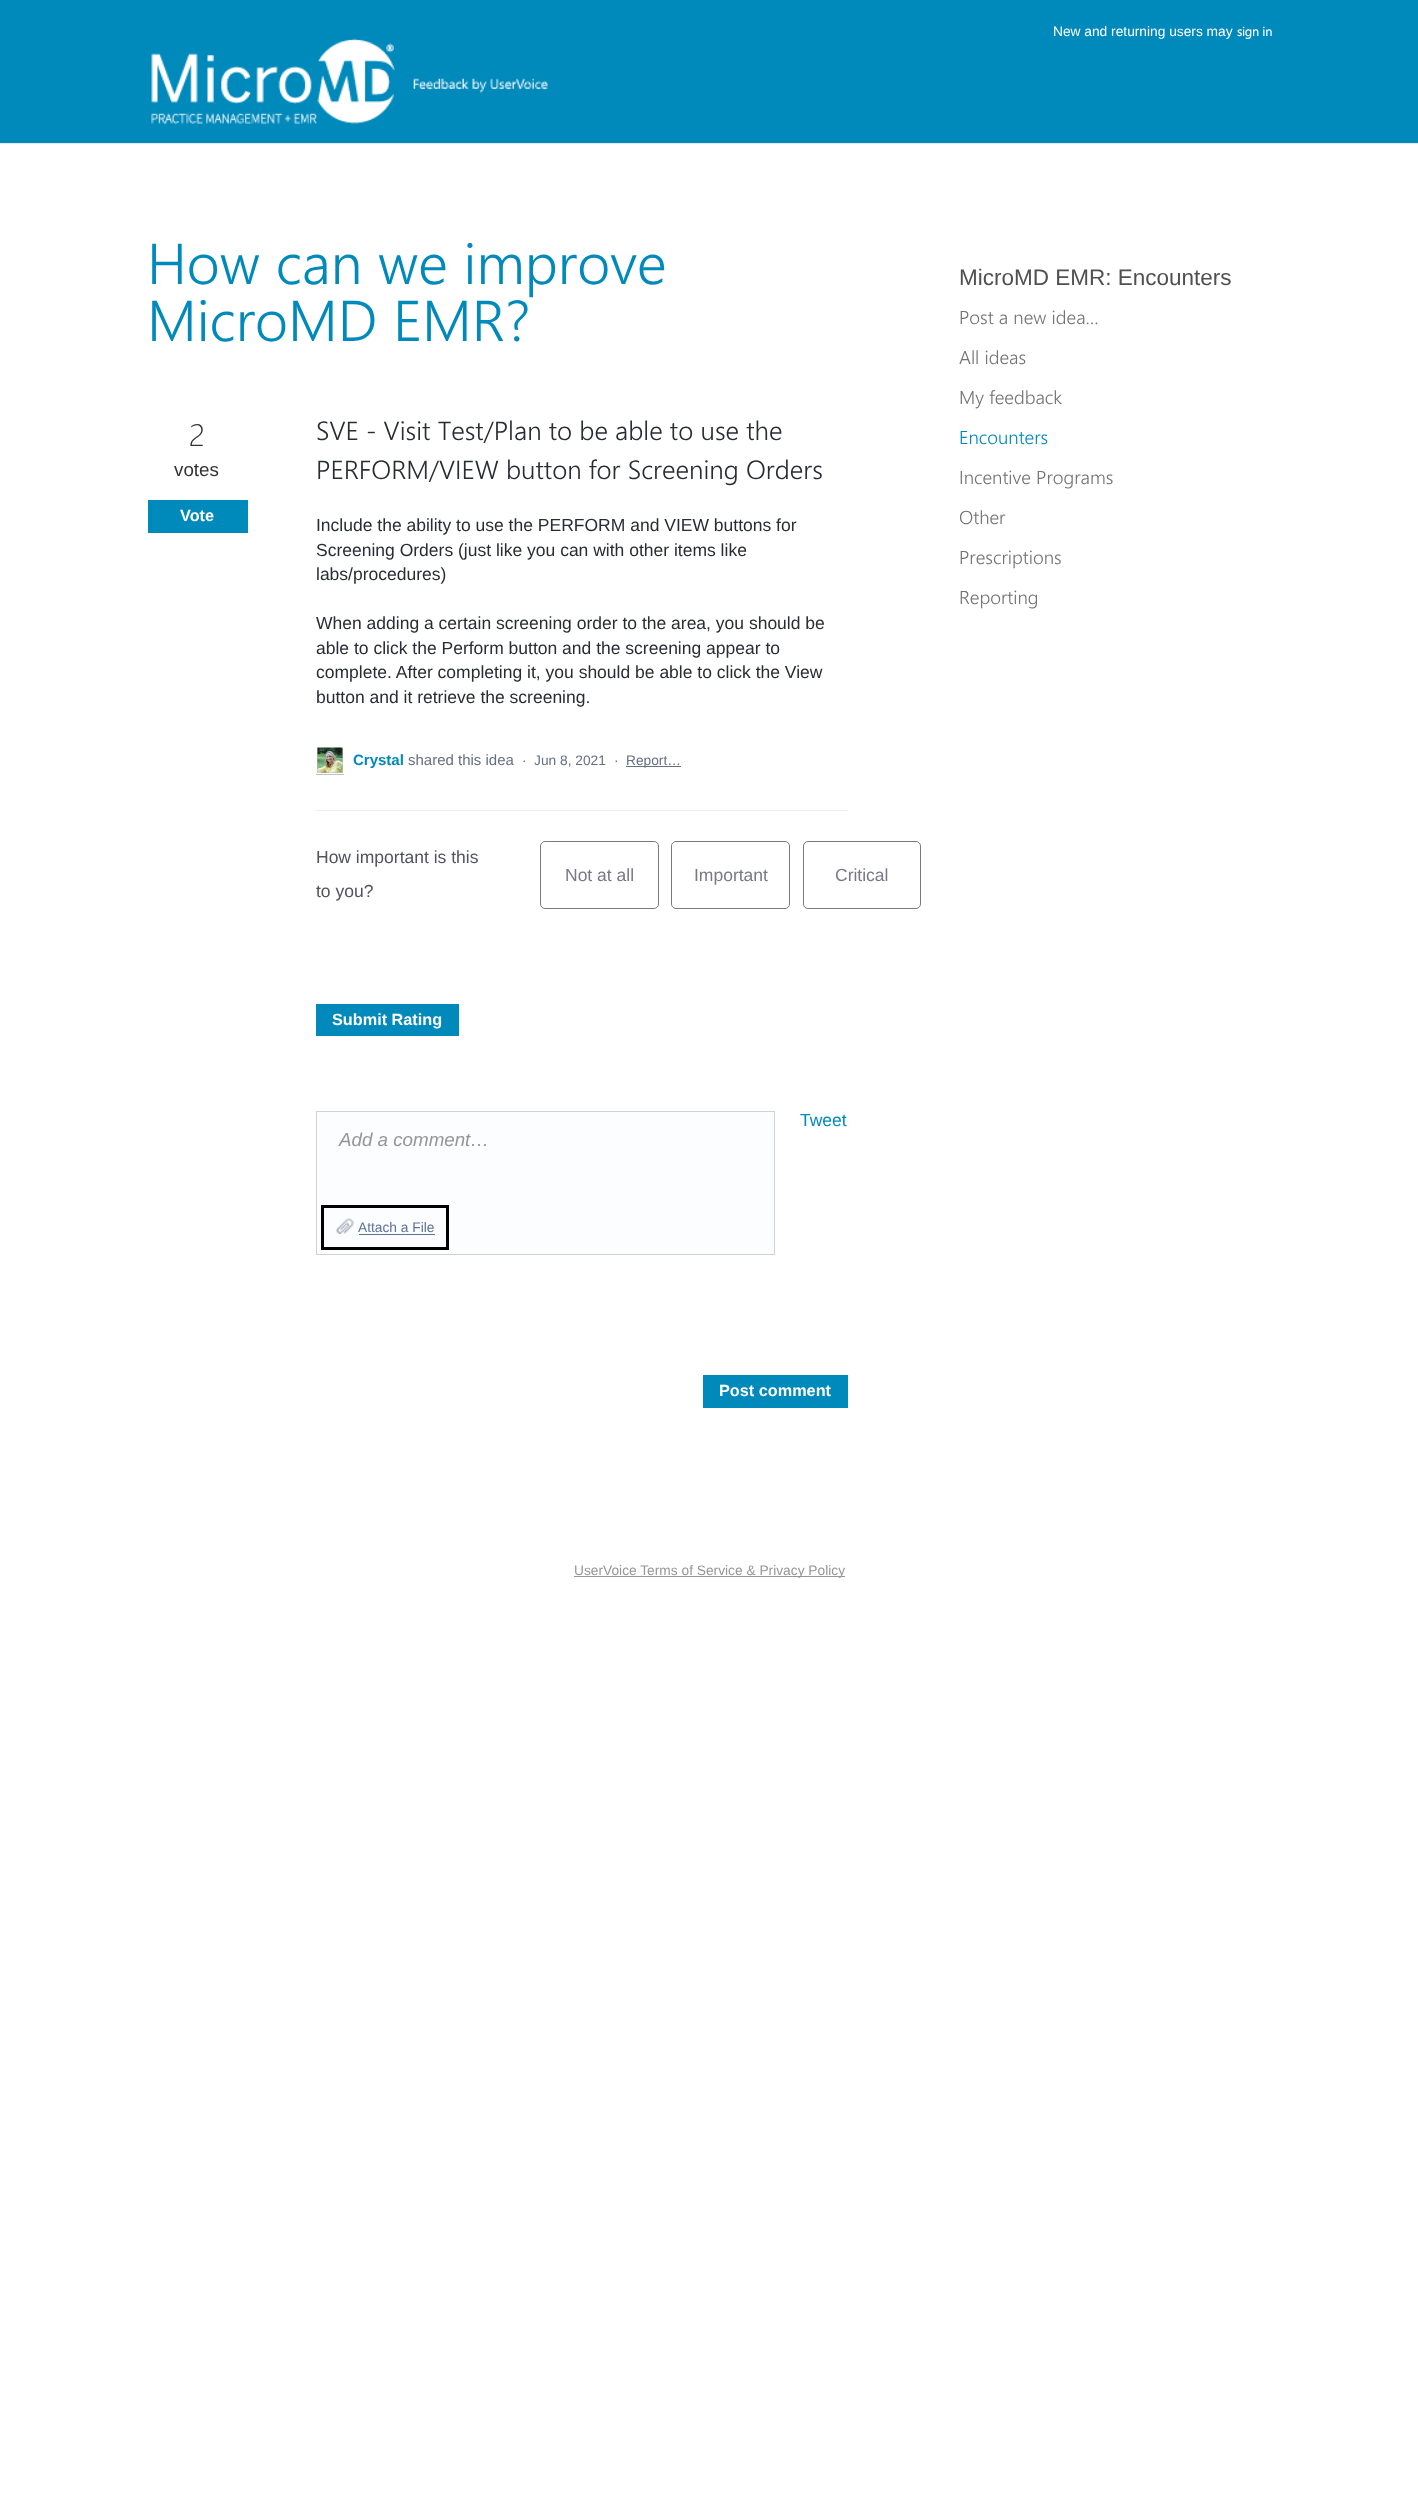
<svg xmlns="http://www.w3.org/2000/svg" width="1418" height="2520">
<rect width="100%" height="100%" fill="#fff"/>
<rect width="1418" height="143" fill="#0089bb"/>
<image x="151" y="38" width="397" height="86" href="media/1.png"/>
<rect y="143" width="1418" height="1" fill="#e3e8f2"/>
<text x="147" y="284" style="font-family:Segoe UI;font-size:57.5px;font-weight:300;fill:#0089bb">How can we improve</text>
<text x="147" y="341" style="font-family:Segoe UI;font-size:57.5px;font-weight:300;fill:#0089bb">MicroMD EMR?</text>
<text x="189" y="446" style="font-family:'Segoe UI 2';font-size:31px;font-weight:300;fill:#333">2</text>
<text x="174" y="476" style="font-family:Liberation Sans;font-size:18.75px;fill:#333">votes</text>
<rect x="148" y="500" width="100" height="33" fill="#0089bb"/>
<text x="180" y="521" style="font-family:Liberation Sans;font-size:16.25px;font-weight:bold;fill:#fff">Vote</text>
<text x="316" y="440" style="font-family:Segoe UI;font-size:26.25px;font-weight:300;fill:#292c33">SVE - Visit Test/Plan to be able to use the</text>
<text x="316" y="479" style="font-family:Segoe UI;font-size:26.25px;font-weight:300;fill:#292c33">PERFORM/VIEW button for Screening Orders</text>
<text x="316" y="531" style="font-family:Liberation Sans;font-size:17.5px;fill:#292c33">Include the ability to use the PERFORM and VIEW buttons for</text>
<text x="316" y="556" style="font-family:Liberation Sans;font-size:17.5px;fill:#292c33">Screening Orders (just like you can with other items like</text>
<text x="316" y="580" style="font-family:Liberation Sans;font-size:17.5px;fill:#292c33">labs/procedures)</text>
<text x="316" y="629" style="font-family:Liberation Sans;font-size:17.5px;fill:#292c33">When adding a certain screening order to the area, you should be</text>
<text x="316" y="654" style="font-family:Liberation Sans;font-size:17.5px;fill:#292c33">able to click the Perform button and the screening appear to</text>
<text x="316" y="678" style="font-family:Liberation Sans;font-size:17.5px;fill:#292c33">complete. After completing it, you should be able to click the View</text>
<text x="316" y="703" style="font-family:Liberation Sans;font-size:17.5px;fill:#292c33">button and it retrieve the screening.</text>
<rect x="316" y="748" width="28" height="27" fill="#00000040" filter="blur(0.5px)"/>
<rect x="316.5" y="746.5" width="27" height="27" fill="none" stroke="#fff"/>
<image x="317" y="747" width="26" height="26" href="media/2.png"/>
<text x="353" y="765" style="font-family:Liberation Sans;font-size:15px;font-weight:bold;fill:#0089bb">Crystal</text>
<text x="408" y="765" style="font-family:Liberation Sans;font-size:15px;fill:#666f80">shared this idea</text>
<text x="522" y="765" style="font-family:Liberation Sans;font-size:13.75px;fill:#646b72">·</text>
<text x="534" y="765" style="font-family:Liberation Sans;font-size:13.75px;fill:#666f80">Jun 8, 2021</text>
<text x="614" y="765" style="font-family:Liberation Sans;font-size:13.75px;fill:#646b72">·</text>
<rect x="626" y="766" width="55" height="1" fill="#666f80"/>
<text x="626" y="765" style="font-family:Liberation Sans;font-size:13.75px;fill:#666f80">Report…</text>
<rect x="316" y="810" width="532" height="1" fill="#ebebf1"/>
<text x="316" y="863" style="font-family:Liberation Sans;font-size:17.5px;fill:#525260">How important is this</text>
<text x="316" y="897" style="font-family:Liberation Sans;font-size:17.5px;fill:#525260">to you?</text>
<rect x="540.5" y="841.5" width="118" height="67" rx="4.5" fill="none" stroke="#797986"/>
<text x="565" y="881" style="font-family:Liberation Sans;font-size:17.5px;fill:#797986">Not at all</text>
<rect x="671.5" y="841.5" width="118" height="67" rx="4.5" fill="none" stroke="#797986"/>
<text x="694" y="881" style="font-family:Liberation Sans;font-size:17.5px;fill:#797986">Important</text>
<rect x="803.5" y="841.5" width="117" height="67" rx="4.5" fill="none" stroke="#797986"/>
<text x="835" y="881" style="font-family:Liberation Sans;font-size:17.5px;fill:#797986">Critical</text>
<rect x="316" y="1004" width="143" height="32" fill="#0089bb"/>
<text x="332" y="1025" style="font-family:Liberation Sans;font-size:16.25px;font-weight:bold;fill:#fff">Submit Rating</text>
<text x="800" y="1126" style="font-family:Liberation Sans;font-size:17.5px;fill:#0089bb">Tweet</text>
<rect x="316.5" y="1111.5" width="458" height="143" fill="#fcfdff" stroke="#d2d2d2"/>
<text x="339" y="1146" style="font-family:Liberation Sans;font-size:18.75px;font-style:italic;fill:#969696">Add a comment…</text>
<image x="336" y="1218" width="18" height="16" href="media/3.png"/>
<rect x="322.5" y="1206.5" width="125" height="42" fill="none" stroke="#000" stroke-width="3"/>
<text x="358" y="1232" style="font-family:Liberation Sans;font-size:13.75px;fill:#5d7298">Attach a File</text>
<rect x="359" y="1234" width="76" height="1" fill="#5d7298"/>
<rect x="703" y="1375" width="145" height="33" fill="#0089bb"/>
<text x="719" y="1396" style="font-family:Liberation Sans;font-size:16.25px;font-weight:bold;fill:#fff">Post comment</text>
<text x="1053" y="36" style="font-family:Liberation Sans;font-size:13.75px;fill:#fff">New and returning users may</text>
<text x="1237" y="36" style="font-family:Segoe UI;font-size:12.5px;font-weight:bold;fill:#fff">sign in</text>
<text x="959" y="285" style="font-family:Liberation Sans;font-size:22.5px;fill:#505050">MicroMD EMR: Encounters</text>
<text x="959" y="324" style="font-family:Segoe UI;font-size:18.75px;font-weight:300;fill:#737373">Post a new idea…</text>
<text x="959" y="364" style="font-family:Segoe UI;font-size:18.75px;font-weight:300;fill:#737373">All ideas</text>
<text x="959" y="404" style="font-family:Segoe UI;font-size:18.75px;font-weight:300;fill:#737373">My feedback</text>
<text x="959" y="444" style="font-family:Segoe UI;font-size:18.75px;font-weight:300;fill:#0089bb">Encounters</text>
<text x="959" y="484" style="font-family:Segoe UI;font-size:18.75px;font-weight:300;fill:#737373">Incentive Programs</text>
<text x="959" y="524" style="font-family:Segoe UI;font-size:18.75px;font-weight:300;fill:#737373">Other</text>
<text x="959" y="564" style="font-family:Segoe UI;font-size:18.75px;font-weight:300;fill:#737373">Prescriptions</text>
<text x="959" y="604" style="font-family:Segoe UI;font-size:18.75px;font-weight:300;fill:#737373">Reporting</text>
<rect x="574" y="1576" width="271" height="1" fill="#969696"/>
<text x="574" y="1575" style="font-family:Liberation Sans;font-size:13.75px;fill:#969696">UserVoice Terms of Service &amp; Privacy Policy</text>
</svg>
